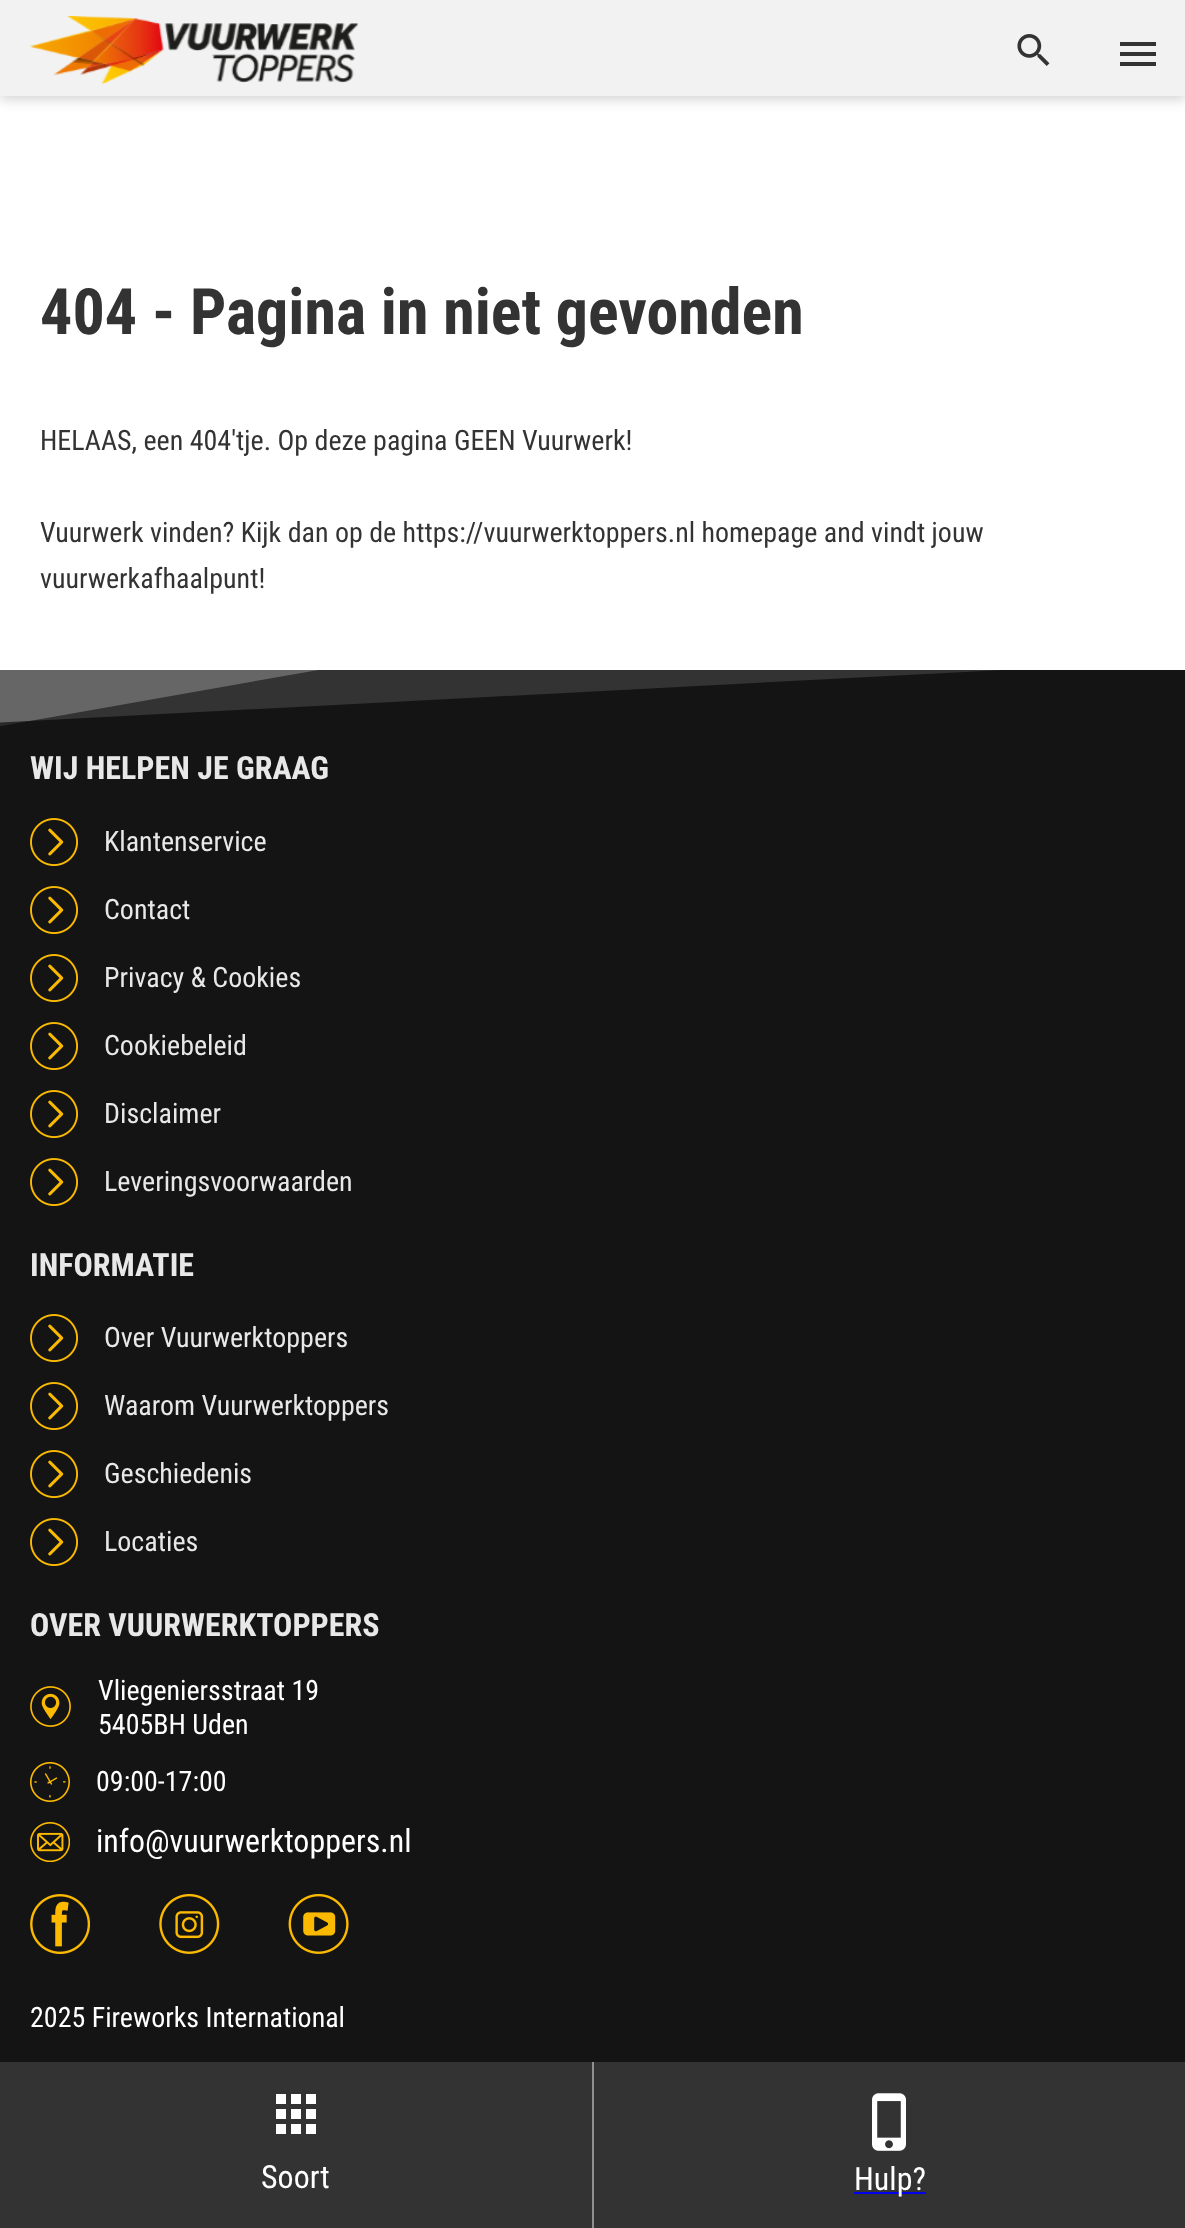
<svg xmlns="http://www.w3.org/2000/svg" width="1185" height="2228">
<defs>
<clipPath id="clip1"><rect y="670" width="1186" height="1558"/></clipPath>
</defs>
<rect width="100%" height="100%" fill="#fff"/>
<rect y="4" width="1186" height="96" fill="#00000029" filter="blur(6px)"/>
<rect width="1185" height="96" fill="#f2f2f2"/>
<image x="30" y="16" width="328" height="68" href="media/1.png"/>
<image x="1017" y="34" width="33" height="32" href="media/2.png"/>
<path d="M1156 42v4h-36v-4zm-36 10h36v4h-36zm0 10h36v4h-36z" fill="#333"/>
<text x="40" y="334" style="font-family:Roboto Condensed;font-size:64px;font-weight:bold;fill:#333">404 - Pagina in niet gevonden</text>
<text x="40" y="450" style="font-family:Roboto Condensed;font-size:28px;fill:#333">HELAAS, een 404'tje. Op deze pagina GEEN Vuurwerk!</text>
<text x="40" y="542" style="font-family:Roboto Condensed;font-size:28px;fill:#333">Vuurwerk vinden? Kijk dan op de https://vuurwerktoppers.nl homepage and vindt jouw</text>
<text x="40" y="588" style="font-family:Roboto Condensed;font-size:28px;fill:#333">vuurwerkafhaalpunt!</text>
<g clip-path="url(#clip1)">
<path d="M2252 1954l-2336 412l-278-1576l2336-412z" fill="#808080"/>
<path d="M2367 2201l-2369 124l-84-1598l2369-124z" fill="#00000099"/>
<path d="M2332 2062l-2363 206l-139-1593l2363-207z" fill="#00000099"/>
</g>
<text x="30" y="779" style="font-family:Roboto Condensed;font-size:32px;font-weight:bold;fill:#e8e8e8">WIJ HELPEN JE GRAAG</text>
<image x="30" y="818" width="48" height="48" href="media/3.png"/>
<text x="104" y="851" style="font-family:Roboto Condensed;font-size:28px;fill:#e8e8e8">Klantenservice</text>
<image x="30" y="886" width="48" height="48" href="media/3.png"/>
<text x="104" y="919" style="font-family:Roboto Condensed;font-size:28px;fill:#e8e8e8">Contact</text>
<image x="30" y="954" width="48" height="48" href="media/3.png"/>
<text x="104" y="987" style="font-family:Roboto Condensed;font-size:28px;fill:#e8e8e8">Privacy &amp; Cookies</text>
<image x="30" y="1022" width="48" height="48" href="media/3.png"/>
<text x="104" y="1055" style="font-family:Roboto Condensed;font-size:28px;fill:#e8e8e8">Cookiebeleid</text>
<image x="30" y="1090" width="48" height="48" href="media/3.png"/>
<text x="104" y="1123" style="font-family:Roboto Condensed;font-size:28px;fill:#e8e8e8">Disclaimer</text>
<image x="30" y="1158" width="48" height="48" href="media/3.png"/>
<text x="104" y="1191" style="font-family:Roboto Condensed;font-size:28px;fill:#e8e8e8">Leveringsvoorwaarden</text>
<text x="30" y="1276" style="font-family:Roboto Condensed;font-size:32px;font-weight:bold;fill:#e8e8e8">INFORMATIE</text>
<image x="30" y="1314" width="48" height="48" href="media/3.png"/>
<text x="104" y="1347" style="font-family:Roboto Condensed;font-size:28px;fill:#e8e8e8">Over Vuurwerktoppers</text>
<image x="30" y="1382" width="48" height="48" href="media/3.png"/>
<text x="104" y="1415" style="font-family:Roboto Condensed;font-size:28px;fill:#e8e8e8">Waarom Vuurwerktoppers</text>
<image x="30" y="1450" width="48" height="48" href="media/3.png"/>
<text x="104" y="1483" style="font-family:Roboto Condensed;font-size:28px;fill:#e8e8e8">Geschiedenis</text>
<image x="30" y="1518" width="48" height="48" href="media/3.png"/>
<text x="104" y="1551" style="font-family:Roboto Condensed;font-size:28px;fill:#e8e8e8">Locaties</text>
<text x="30" y="1636" style="font-family:Roboto Condensed;font-size:32px;font-weight:bold;fill:#e8e8e8">OVER VUURWERKTOPPERS</text>
<image x="30" y="1686" width="41" height="41" href="media/4.png"/>
<text x="98" y="1700" style="font-family:Roboto Condensed;font-size:28px;fill:#fff">Vliegeniersstraat 19</text>
<text x="98" y="1734" style="font-family:Roboto Condensed;font-size:28px;fill:#fff">5405BH Uden</text>
<image x="30" y="1762" width="40" height="40" href="media/5.png"/>
<text x="96" y="1791" style="font-family:Roboto Condensed;font-size:28px;fill:#fff">09:00-17:00</text>
<image x="30" y="1822" width="40" height="40" href="media/6.png"/>
<text x="96" y="1852" style="font-family:Roboto Condensed;font-size:32px;fill:#fff">info@vuurwerktoppers.nl</text>
<image x="30" y="1894" width="60" height="60" href="media/7.png"/>
<image x="159" y="1894" width="61" height="60" href="media/8.png"/>
<image x="288" y="1894" width="61" height="60" href="media/9.png"/>
<text x="30" y="2027" style="font-family:Roboto Condensed;font-size:28px;fill:#fff">2025 Fireworks International</text>
<rect y="2062" width="1185" height="166" fill="#333"/>
<rect x="592" y="2062" width="2" height="166" fill="#8f8f8f"/>
<image x="276" y="2094" width="40" height="40" href="media/10.png"/>
<text x="261" y="2188" style="font-family:Roboto Condensed;font-size:32px;fill:#fff">Soort</text>
<image x="872" y="2093" width="34" height="58" href="media/11.png"/>
<rect x="854" y="2192" width="72" height="2" fill="#00e"/>
<text x="854" y="2190" style="font-family:Roboto Condensed;font-size:32px;fill:#fff">Hulp?</text>
</svg>
